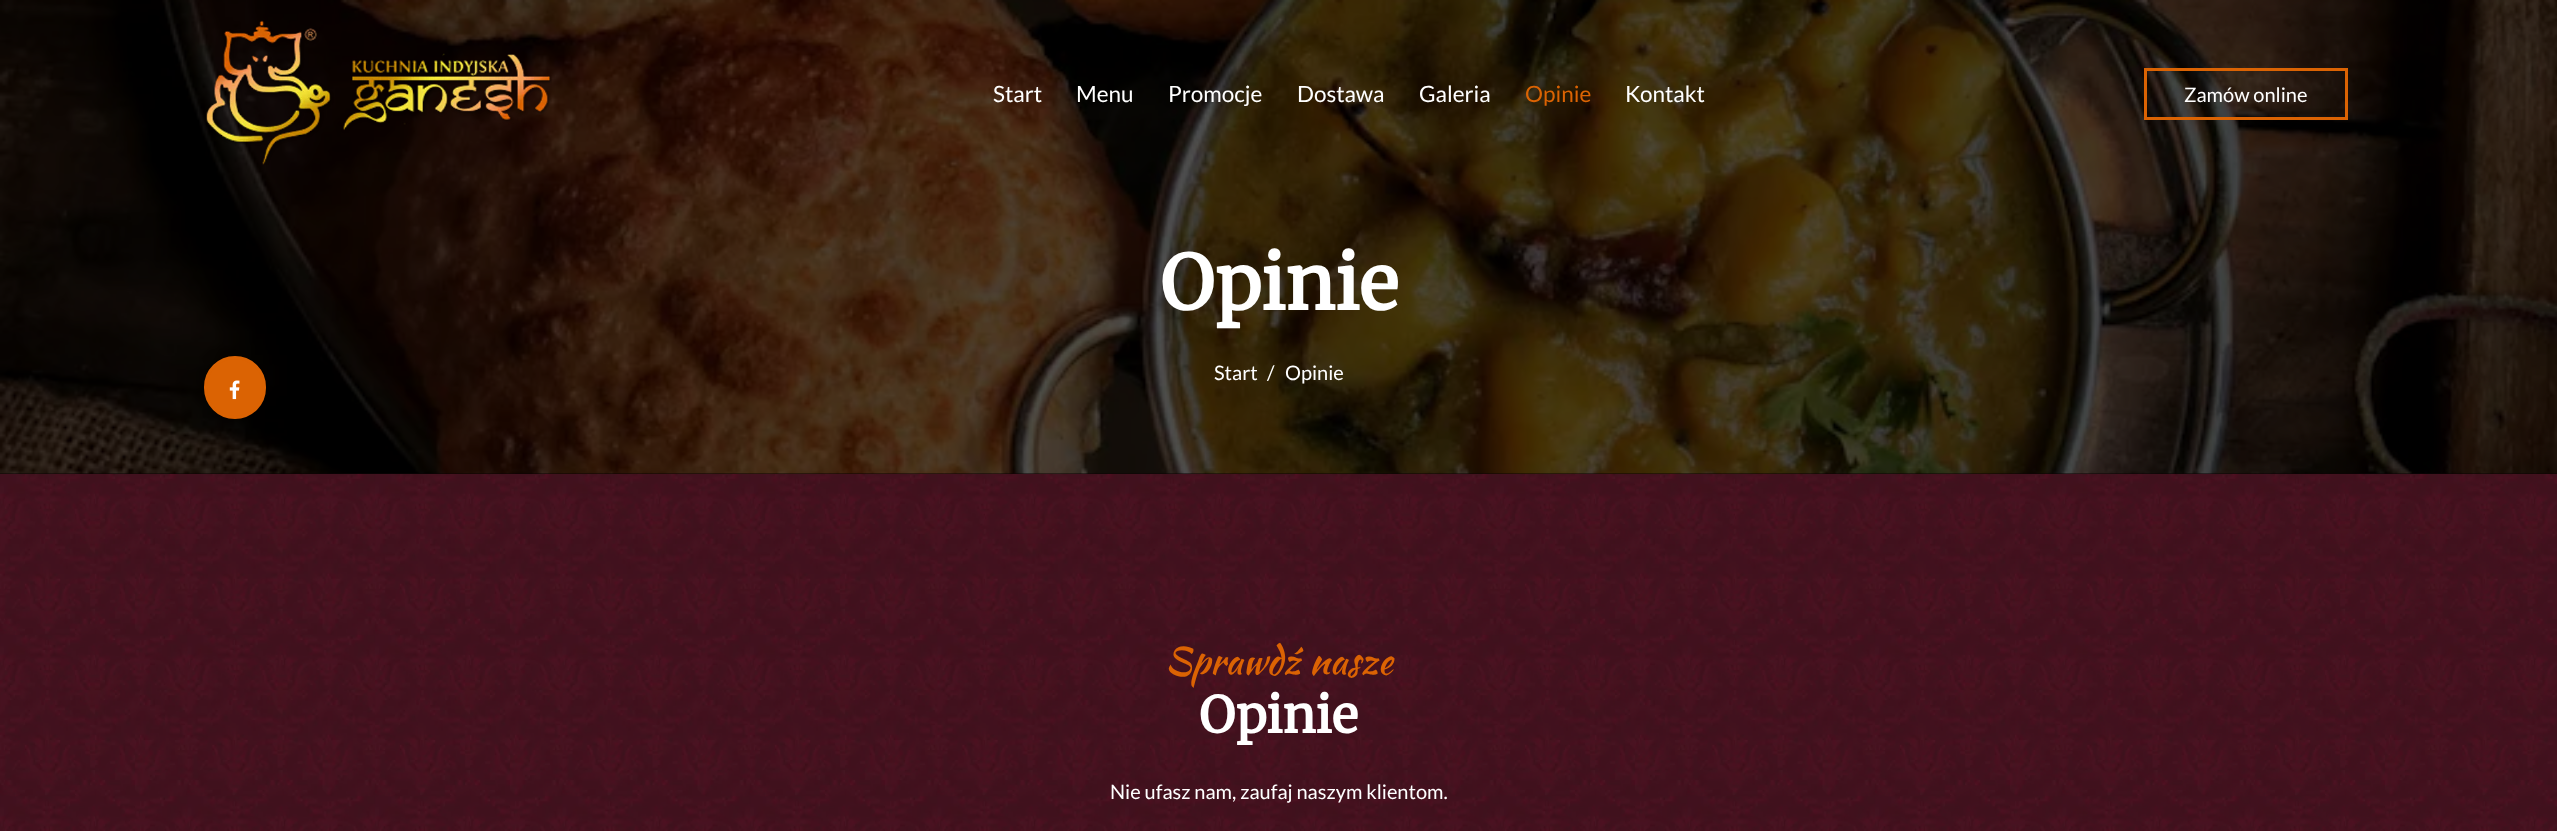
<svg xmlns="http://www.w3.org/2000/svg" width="2557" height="831">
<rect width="100%" height="100%" fill="#41131e"/>
<rect width="2557" height="474" fill="#000"/>
<image x="0" y="0" width="2557" height="474" href="media/2.png"/>
<image x="206" y="20" width="346" height="145" href="media/1.png"/>
<text x="993" y="102" style="font-family:Lato;font-size:22.5px;fill:#fff">Start</text>
<text x="1076" y="102" style="font-family:Lato;font-size:22.5px;fill:#fff">Menu</text>
<text x="1168" y="102" style="font-family:Lato;font-size:22.5px;fill:#fff">Promocje</text>
<text x="1297" y="102" style="font-family:Lato;font-size:22.5px;fill:#fff">Dostawa</text>
<text x="1419" y="102" style="font-family:Lato;font-size:22.5px;fill:#fff">Galeria</text>
<text x="1525" y="102" style="font-family:Lato;font-size:22.5px;fill:#db6303">Opinie</text>
<text x="1625" y="102" style="font-family:Lato;font-size:22.5px;fill:#fff">Kontakt</text>
<rect x="2145.5" y="69.5" width="201" height="49" fill="none" stroke="#db6303" stroke-width="3"/>
<text x="2184" y="102" style="font-family:Lato;font-size:20px;fill:#fff">Zamów online</text>
<rect x="205.5" y="357.5" width="59" height="60" rx="29.5" fill="#db6303" stroke="#db6303" stroke-width="3"/>
<image x="229" y="380" width="11" height="20" href="media/3.png"/>
<text x="1160" y="310" style="font-family:Merriweather;font-size:75px;font-weight:bold;fill:#fff">Opinie</text>
<text x="1214" y="380" style="font-family:Lato;font-size:20px;fill:#fff">Start</text>
<text x="1267" y="380" style="font-family:Lato;font-size:20px;fill:#fff">/</text>
<text x="1285" y="380" style="font-family:Lato;font-size:20px;fill:#fff">Opinie</text>
<image x="0" y="473" width="2557" height="358" href="media/4.png"/>
<text x="1165" y="674" style="font-family:Kaushan Script;font-size:37.5px;fill:#db6303">Sprawdź nasze</text>
<text x="1199" y="733" style="font-family:Merriweather;font-size:50px;font-weight:bold;fill:#fff">Opinie</text>
<text x="1110" y="799" style="font-family:Lato;font-size:20px;fill:#fff">Nie ufasz nam, zaufaj naszym klientom.</text>
</svg>
